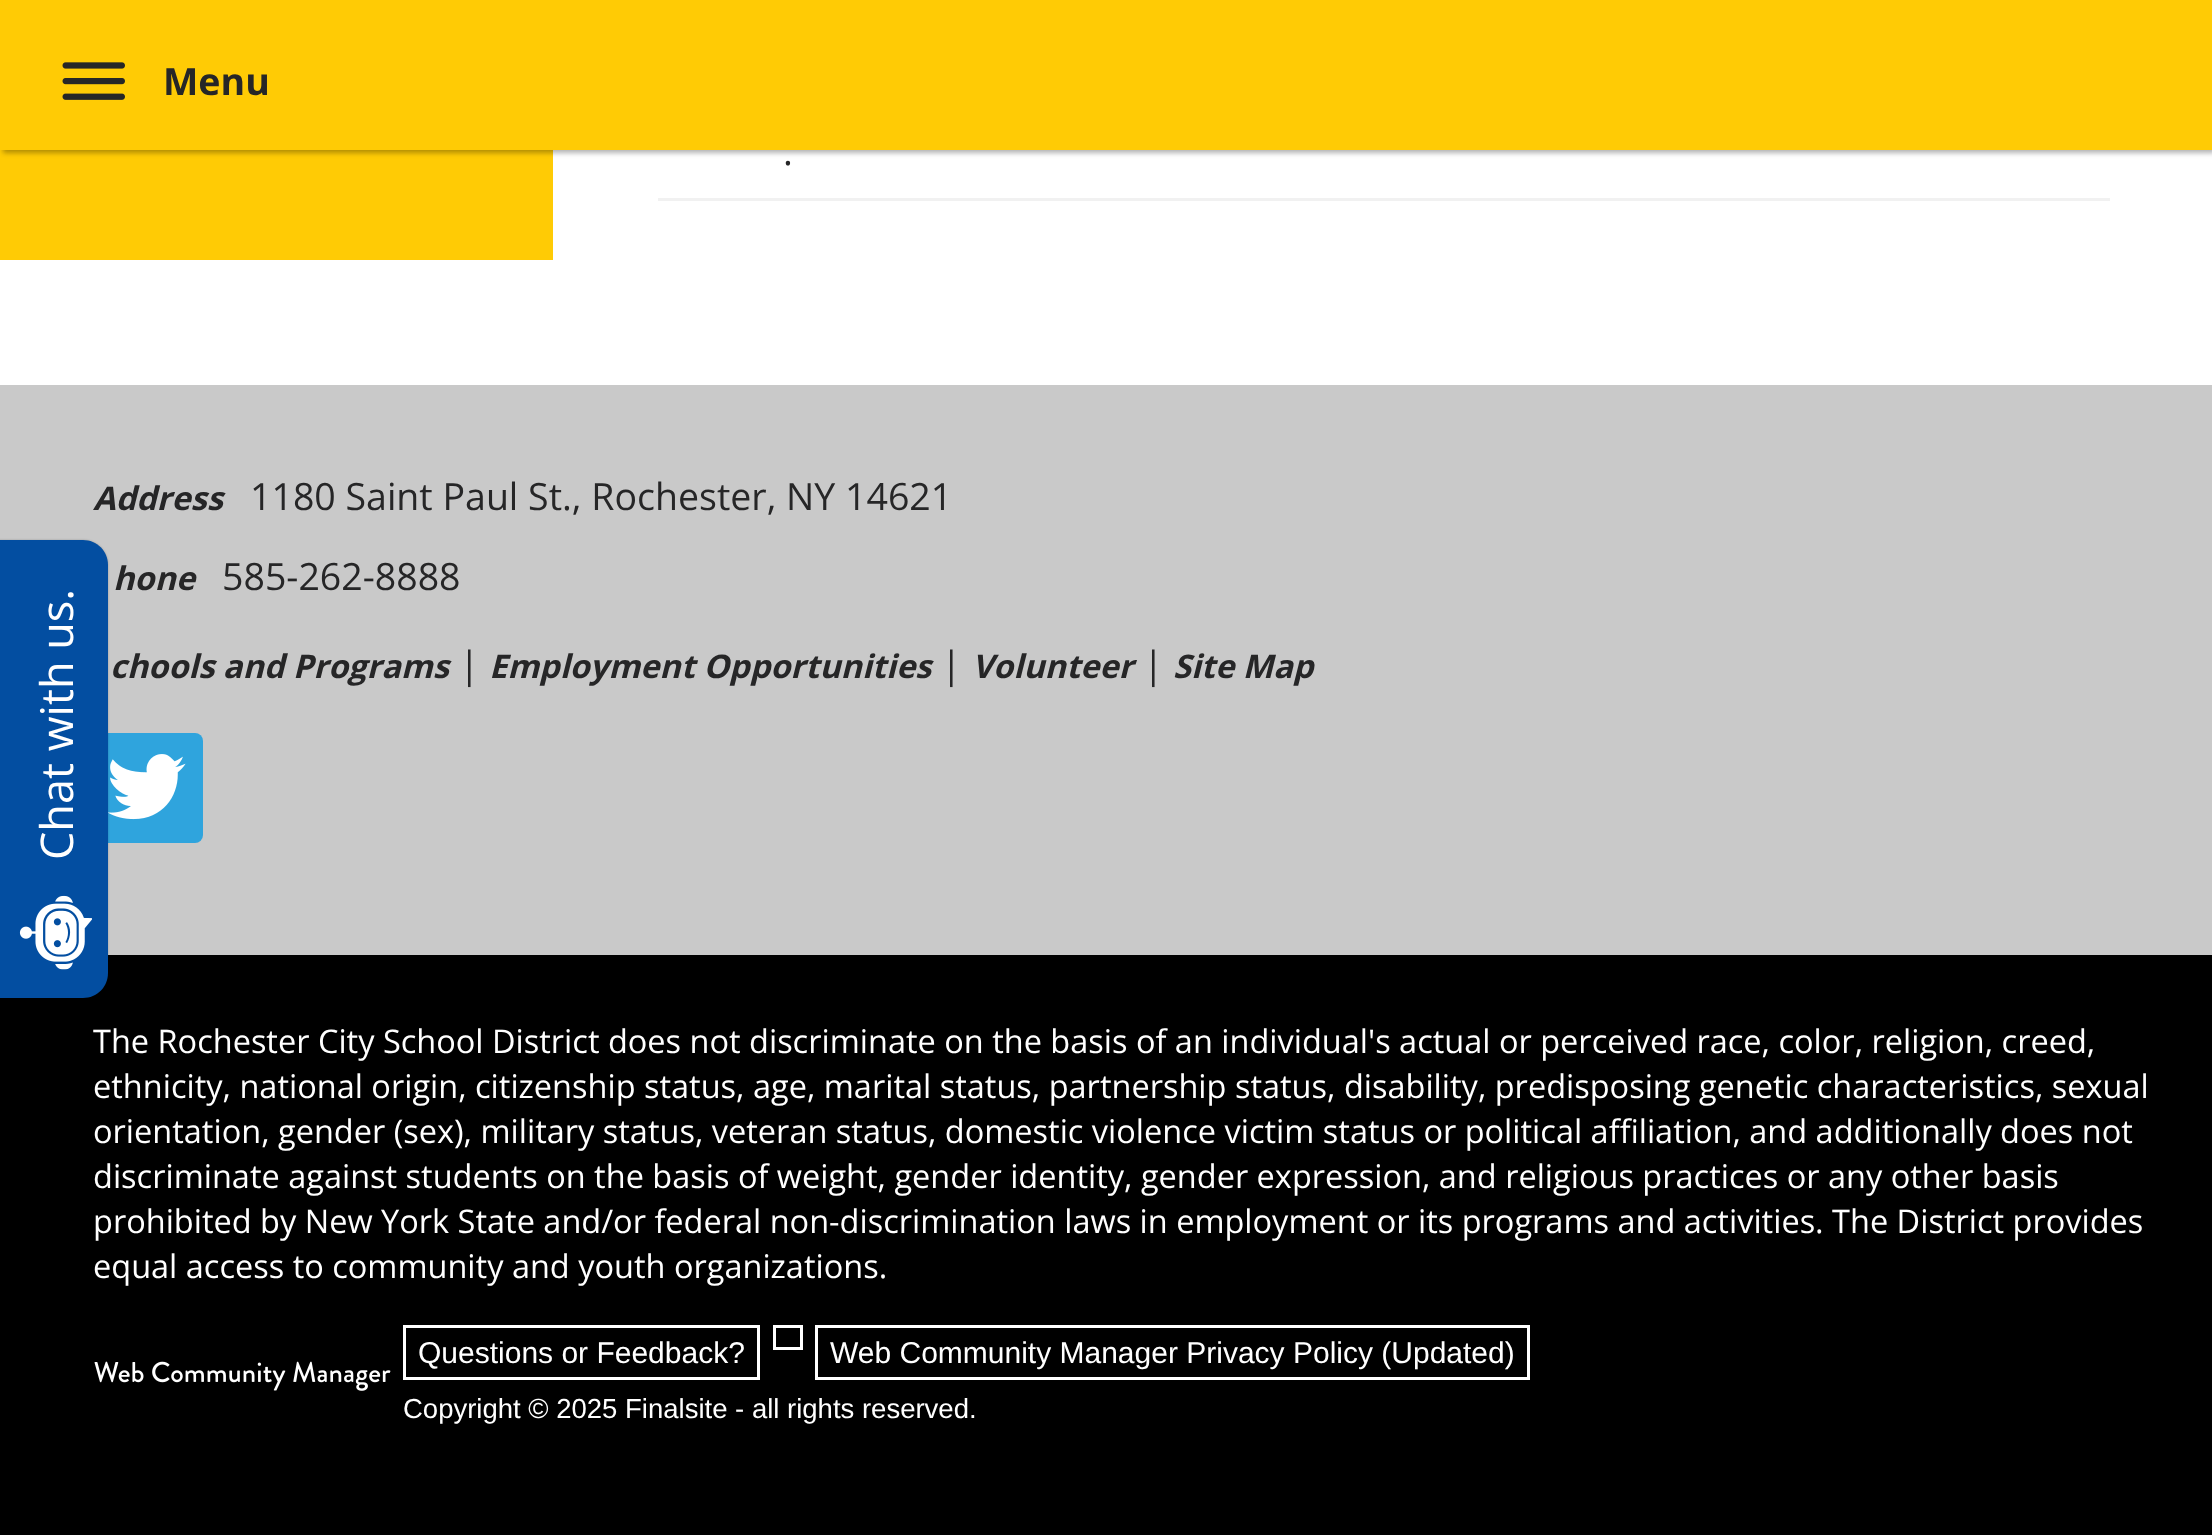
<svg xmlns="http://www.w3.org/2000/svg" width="2212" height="1535">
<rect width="100%" height="100%" fill="#fff"/>
<rect y="385" width="2212" height="570" fill="#c9c9c9"/>
<rect x="93" y="733" width="110" height="110" rx="8" fill="#2fa4dd"/>
<image x="108" y="754" width="78" height="66" href="media/3.png"/>
<rect y="955" width="2212" height="580" fill="#000"/>
<rect x="-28" y="540" width="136" height="458" rx="25" fill="#00000038" filter="blur(1px)"/>
<path d="M0 540h83c14 0 25 11 25 25v408c0 14-11 25-25 25h-83z" fill="#034ea1"/>
<text x="73" y="860" transform="rotate(-90 73 860)" style="font-family:Open Sans;font-size:45px;fill:#fff">Chat with us.</text>
<image x="19" y="895" width="73" height="75" href="media/1.png"/>
<rect y="150" width="553" height="110" fill="#ffcb05"/>
<rect x="3" y="3" width="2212" height="150" fill="#0000004d" filter="blur(2.5px)"/>
<rect width="2212" height="150" fill="#ffcb05"/>
<image x="62" y="62" width="63" height="38" href="media/2.png"/>
<text x="163" y="95" style="font-family:Open Sans;font-size:37.5px;font-weight:bold;fill:#262627">Menu</text>
<rect x="658" y="198" width="1452" height="3" fill="#f1f1f1"/>
<text x="783" y="165" style="font-family:Open Sans;font-size:37.5px;fill:#262627">.</text>
<text x="93" y="510" style="font-family:Open Sans;font-size:32.5px;font-weight:bold;font-style:italic;fill:#262627">Address</text>
<text x="250" y="510" style="font-family:Open Sans;font-size:37.5px;fill:#262627">1180 Saint Paul St., Rochester, NY 14621</text>
<text x="113" y="590" style="font-family:Open Sans;font-size:32.5px;font-weight:bold;font-style:italic;fill:#262627">hone</text>
<text x="222" y="590" style="font-family:Open Sans;font-size:37.5px;fill:#262627">585-262-8888</text>
<text x="110" y="678" style="font-family:Open Sans;font-size:32.5px;font-weight:bold;font-style:italic;fill:#262627">chools and Programs</text>
<text x="459" y="678" style="font-family:Open Sans;font-size:37.5px;fill:#262627">|</text>
<text x="489" y="678" style="font-family:Open Sans;font-size:32.5px;font-weight:bold;font-style:italic;fill:#262627">Employment Opportunities</text>
<text x="941" y="678" style="font-family:Open Sans;font-size:37.5px;fill:#262627">|</text>
<text x="972" y="678" style="font-family:Open Sans;font-size:32.5px;font-weight:bold;font-style:italic;fill:#262627">Volunteer</text>
<text x="1143" y="678" style="font-family:Open Sans;font-size:37.5px;fill:#262627">|</text>
<text x="1173" y="678" style="font-family:Open Sans;font-size:32.5px;font-weight:bold;font-style:italic;fill:#262627">Site Map</text>
<text x="93" y="1053" style="font-family:Open Sans;font-size:32.5px;fill:#fff">The Rochester City School District does not discriminate on the basis of an individual's actual or perceived race, color, religion, creed,</text>
<text x="93" y="1098" style="font-family:Open Sans;font-size:32.5px;fill:#fff">ethnicity, national origin, citizenship status, age, marital status, partnership status, disability, predisposing genetic characteristics, sexual</text>
<text x="93" y="1143" style="font-family:Open Sans;font-size:32.5px;fill:#fff">orientation, gender (sex), military status, veteran status, domestic violence victim status or political affiliation, and additionally does not</text>
<text x="93" y="1188" style="font-family:Open Sans;font-size:32.5px;fill:#fff">discriminate against students on the basis of weight, gender identity, gender expression, and religious practices or any other basis</text>
<text x="93" y="1233" style="font-family:Open Sans;font-size:32.5px;fill:#fff">prohibited by New York State and/or federal non-discrimination laws in employment or its programs and activities. The District provides</text>
<text x="93" y="1278" style="font-family:Open Sans;font-size:32.5px;fill:#fff">equal access to community and youth organizations.</text>
<image x="94" y="1361" width="297" height="30" href="media/4.png"/>
<rect x="774.5" y="1326.5" width="27" height="22" fill="none" stroke="#fff" stroke-width="3"/>
<rect x="404.5" y="1326.5" width="354" height="52" fill="none" stroke="#fff" stroke-width="3"/>
<text x="418" y="1363" style="font-family:Liberation Sans;font-size:30px;fill:#fff">Questions or Feedback?</text>
<rect x="816.5" y="1326.5" width="712" height="52" fill="none" stroke="#fff" stroke-width="3"/>
<text x="830" y="1363" style="font-family:Liberation Sans;font-size:30px;fill:#fff">Web Community Manager Privacy Policy (Updated)</text>
<text x="403" y="1418" style="font-family:Liberation Sans;font-size:27.5px;fill:#fff">Copyright © 2025 Finalsite - all rights reserved.</text>
</svg>
